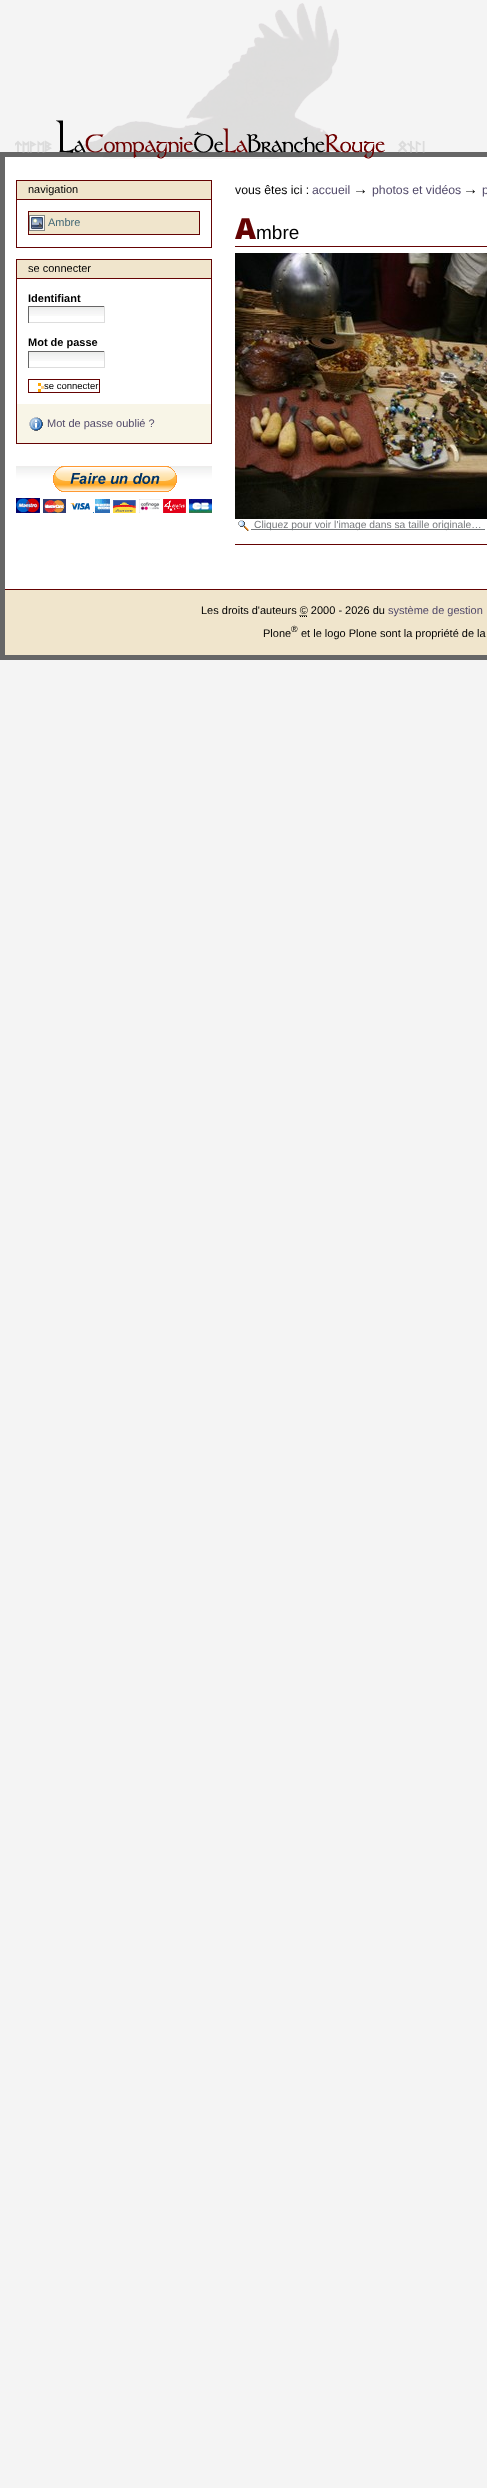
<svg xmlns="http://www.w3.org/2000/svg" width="487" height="2488">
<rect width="100%" height="100%" fill="#f4f4f4"/>
<rect x="5" y="157" width="482" height="432" fill="#fff"/>
<rect x="2.5" y="154.5" width="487" height="503" fill="none" stroke="#666" stroke-width="5"/>
<image x="15" y="3" width="410" height="156" href="media/1.png"/>
<rect x="16" y="247" width="196" height="1" fill="#650303"/>
<rect x="16.5" y="180.5" width="195" height="19" fill="#f0e5cc" stroke="#650303"/>
<text x="28" y="193" style="font-family:Liberation Sans;font-size:11px;fill:#000">navigation</text>
<rect x="211" y="200" width="1" height="47" fill="#650303"/>
<rect x="16" y="200" width="1" height="47" fill="#650303"/>
<rect x="28.5" y="211.5" width="171" height="23" fill="#f0e5cc" stroke="#650303"/>
<image x="29" y="215" width="16" height="16" href="media/2.png"/>
<text x="48" y="226" style="font-family:Liberation Sans;font-size:11px;fill:#436976">Ambre</text>
<rect x="16" y="443" width="196" height="1" fill="#650303"/>
<rect x="16.5" y="259.5" width="195" height="19" fill="#f0e5cc" stroke="#650303"/>
<text x="28" y="272" style="font-family:Liberation Sans;font-size:11px;fill:#000">se connecter</text>
<rect x="211" y="279" width="1" height="164" fill="#650303"/>
<rect x="16" y="279" width="1" height="164" fill="#650303"/>
<text x="28" y="302" style="font-family:Liberation Sans;font-size:11px;font-weight:bold;fill:#000">Identifiant</text>
<image x="29" y="307" width="75" height="9" href="media/3.png"/>
<rect x="28" y="306" width="77" height="1" fill="#666"/>
<rect x="104" y="306" width="1" height="17" fill="#ddd"/>
<rect x="28" y="322" width="77" height="1" fill="#ddd"/>
<rect x="28" y="306" width="1" height="17" fill="#666"/>
<text x="28" y="346" style="font-family:Liberation Sans;font-size:11px;font-weight:bold;fill:#000">Mot de passe</text>
<image x="29" y="352" width="75" height="9" href="media/3.png"/>
<rect x="28" y="351" width="77" height="1" fill="#666"/>
<rect x="104" y="351" width="1" height="17" fill="#ddd"/>
<rect x="28" y="367" width="77" height="1" fill="#ddd"/>
<rect x="28" y="351" width="1" height="17" fill="#666"/>
<image x="38" y="383" width="6" height="9" href="media/4.png"/>
<rect x="28.5" y="379.5" width="71" height="13" fill="none" stroke="#650303"/>
<text x="44" y="389" style="font-family:Liberation Sans;font-size:9.5px;fill:#000">se connecter</text>
<rect x="17" y="404" width="194" height="39" fill="#f8f5e7"/>
<image x="29" y="417" width="14" height="14" href="media/5.png"/>
<text x="47" y="427" style="font-family:Liberation Sans;font-size:11px;fill:#524a6a">Mot de passe oublié ?</text>
<image x="16" y="466" width="196" height="47" href="media/6.png"/>
<text x="235" y="194" style="font-family:Liberation Sans;font-size:12.25px;fill:#000">vous êtes ici :</text>
<text x="312" y="194" style="font-family:Liberation Sans;font-size:12.25px;fill:#524a6a">accueil</text>
<text x="353" y="194" style="font-family:Liberation Sans;font-size:15px;fill:#000">→</text>
<text x="372" y="194" style="font-family:Liberation Sans;font-size:12.25px;fill:#524a6a">photos et vidéos</text>
<text x="463" y="194" style="font-family:Liberation Sans;font-size:15px;fill:#000">→</text>
<text x="482" y="194" style="font-family:Liberation Sans;font-size:12.25px;fill:#524a6a">p</text>
<rect x="235" y="246" width="252" height="1" fill="#650303"/>
<text x="235" y="239" style="font-family:Noto Sans;font-size:29px;font-weight:900;fill:#650303">A</text>
<text x="256" y="239" style="font-family:Liberation Sans;font-size:19px;fill:#000">mbre</text>
<image x="235" y="253" width="252" height="266" href="media/7.png"/>
<image x="238" y="520" width="11" height="11" href="media/8.png"/>
<rect x="251" y="529" width="234" height="1" fill="#76797c"/>
<text x="254" y="528" style="font-family:Liberation Sans;font-size:10.3px;fill:#76797c">Cliquez pour voir l'image dans sa taille originale…</text>
<rect x="235" y="544" width="252" height="1" fill="#650303"/>
<rect x="5" y="590" width="482" height="65" fill="#f0e5cc"/>
<rect x="5" y="589" width="482" height="1" fill="#650303"/>
<text x="201" y="614" style="font-family:Liberation Sans;font-size:11px;fill:#000">Les droits d'auteurs © 2000 - 2026 du</text>
<text x="388" y="614" style="font-family:Liberation Sans;font-size:11px;fill:#524a6a">système de gestion</text>
<path d="M300 616.5h8m-8.5-1h8" fill="none" stroke="#000" stroke-dasharray="1 1"/>
<text x="263" y="637" style="font-family:Liberation Sans;font-size:11px;fill:#000">Plone</text>
<text x="291" y="632" style="font-family:Liberation Sans;font-size:9px;fill:#000">®</text>
<text x="301" y="637" style="font-family:Liberation Sans;font-size:11px;fill:#000">et le logo Plone sont la propriété de la</text>
</svg>
